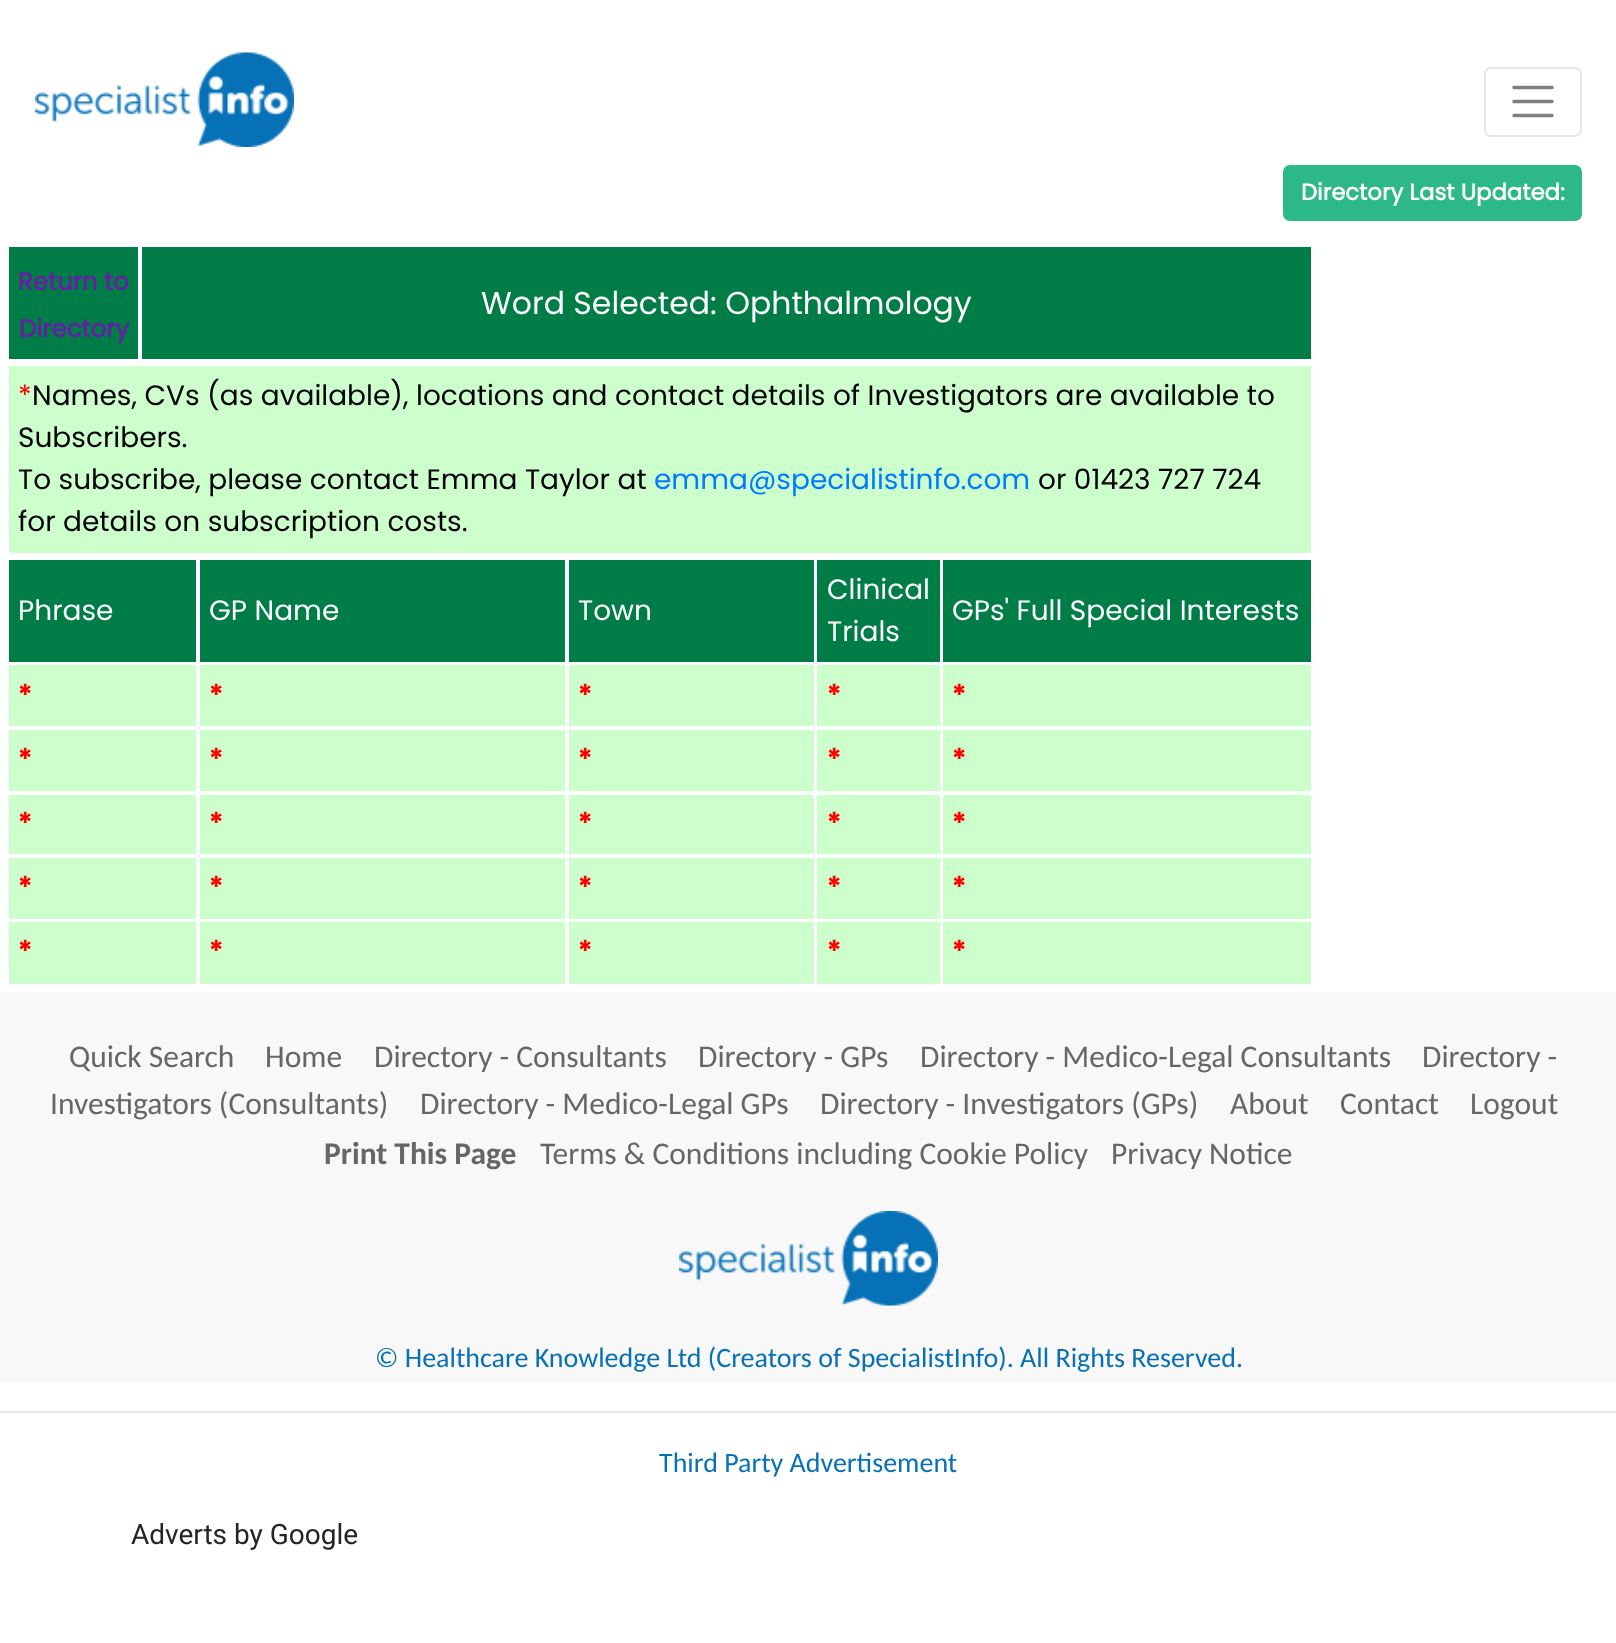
<svg xmlns="http://www.w3.org/2000/svg" width="1616" height="1643">
<rect width="100%" height="100%" fill="#fff"/>
<image x="35" y="52" width="259" height="95" href="media/1.png"/>
<rect x="1485" y="68" width="96" height="68" rx="6" fill="none" stroke="#e6e6e6" stroke-width="2"/>
<path d="M1514 87.5h38m-38 14h38m-38 14h38" fill="none" stroke="#808080" stroke-width="3.5" stroke-linecap="round"/>
<rect x="1283" y="165" width="299" height="56" rx="7" fill="#2db987"/>
<text x="1301" y="200" style="font-family:Poppins;font-size:22.75px;font-weight:bold;fill:#fff">Directory Last Updated:</text>
<rect x="9" y="247" width="129" height="112" fill="#007d47"/>
<text x="18" y="290" style="font-family:Poppins;font-size:24.5px;font-weight:bold;fill:#681da8">Return to</text>
<text x="19" y="337" style="font-family:Poppins;font-size:24.5px;font-weight:bold;fill:#681da8">Directory</text>
<rect x="142" y="247" width="1169" height="112" fill="#007d47"/>
<text x="481" y="314" style="font-family:Poppins;font-size:31.5px;fill:#fff">Word Selected: Ophthalmology</text>
<rect x="9" y="366" width="1302" height="187" fill="#cfc"/>
<text x="18" y="405" style="font-family:Poppins;font-size:28px;fill:#f00">*</text>
<text x="32" y="405" style="font-family:Poppins;font-size:28px;fill:#000">Names, CVs (as available), locations and contact details of Investigators are available to</text>
<text x="18" y="447" style="font-family:Poppins;font-size:28px;fill:#000">Subscribers.</text>
<text x="18" y="489" style="font-family:Poppins;font-size:28px;fill:#000">To subscribe, please contact Emma Taylor at</text>
<text x="654" y="489" style="font-family:Poppins;font-size:28px;fill:#007bff">emma@specialistinfo.com</text>
<text x="1038" y="489" style="font-family:Poppins;font-size:28px;fill:#000">or 01423 727 724</text>
<text x="18" y="531" style="font-family:Poppins;font-size:28px;fill:#000">for details on subscription costs.</text>
<rect x="9" y="560" width="187" height="102" fill="#007d47"/>
<text x="18" y="620" style="font-family:Poppins;font-size:28px;fill:#fff">Phrase</text>
<rect x="200" y="560" width="365" height="102" fill="#007d47"/>
<text x="209" y="620" style="font-family:Poppins;font-size:28px;fill:#fff">GP Name</text>
<rect x="569" y="560" width="245" height="102" fill="#007d47"/>
<text x="578" y="620" style="font-family:Poppins;font-size:28px;fill:#fff">Town</text>
<rect x="817" y="560" width="123" height="102" fill="#007d47"/>
<text x="827" y="599" style="font-family:Poppins;font-size:28px;fill:#fff">Clinical</text>
<text x="827" y="641" style="font-family:Poppins;font-size:28px;fill:#fff">Trials</text>
<rect x="943" y="560" width="368" height="102" fill="#007d47"/>
<text x="952" y="620" style="font-family:Poppins;font-size:28px;fill:#fff">GPs' Full Special Interests</text>
<rect x="9" y="665" width="187" height="61" fill="#cfc"/>
<text x="18" y="705" style="font-family:Poppins;font-size:28px;font-weight:bold;fill:#f00">*</text>
<rect x="200" y="665" width="365" height="61" fill="#cfc"/>
<text x="209" y="705" style="font-family:Poppins;font-size:28px;font-weight:bold;fill:#f00">*</text>
<rect x="569" y="665" width="245" height="61" fill="#cfc"/>
<text x="578" y="705" style="font-family:Poppins;font-size:28px;font-weight:bold;fill:#f00">*</text>
<rect x="817" y="665" width="123" height="61" fill="#cfc"/>
<text x="827" y="705" style="font-family:Poppins;font-size:28px;font-weight:bold;fill:#f00">*</text>
<rect x="943" y="665" width="368" height="61" fill="#cfc"/>
<text x="952" y="705" style="font-family:Poppins;font-size:28px;font-weight:bold;fill:#f00">*</text>
<rect x="9" y="730" width="187" height="61" fill="#cfc"/>
<text x="18" y="769" style="font-family:Poppins;font-size:28px;font-weight:bold;fill:#f00">*</text>
<rect x="200" y="730" width="365" height="61" fill="#cfc"/>
<text x="209" y="769" style="font-family:Poppins;font-size:28px;font-weight:bold;fill:#f00">*</text>
<rect x="569" y="730" width="245" height="61" fill="#cfc"/>
<text x="578" y="769" style="font-family:Poppins;font-size:28px;font-weight:bold;fill:#f00">*</text>
<rect x="817" y="730" width="123" height="61" fill="#cfc"/>
<text x="827" y="769" style="font-family:Poppins;font-size:28px;font-weight:bold;fill:#f00">*</text>
<rect x="943" y="730" width="368" height="61" fill="#cfc"/>
<text x="952" y="769" style="font-family:Poppins;font-size:28px;font-weight:bold;fill:#f00">*</text>
<rect x="9" y="795" width="187" height="59" fill="#cfc"/>
<text x="18" y="833" style="font-family:Poppins;font-size:28px;font-weight:bold;fill:#f00">*</text>
<rect x="200" y="795" width="365" height="59" fill="#cfc"/>
<text x="209" y="833" style="font-family:Poppins;font-size:28px;font-weight:bold;fill:#f00">*</text>
<rect x="569" y="795" width="245" height="59" fill="#cfc"/>
<text x="578" y="833" style="font-family:Poppins;font-size:28px;font-weight:bold;fill:#f00">*</text>
<rect x="817" y="795" width="123" height="59" fill="#cfc"/>
<text x="827" y="833" style="font-family:Poppins;font-size:28px;font-weight:bold;fill:#f00">*</text>
<rect x="943" y="795" width="368" height="59" fill="#cfc"/>
<text x="952" y="833" style="font-family:Poppins;font-size:28px;font-weight:bold;fill:#f00">*</text>
<rect x="9" y="858" width="187" height="61" fill="#cfc"/>
<text x="18" y="897" style="font-family:Poppins;font-size:28px;font-weight:bold;fill:#f00">*</text>
<rect x="200" y="858" width="365" height="61" fill="#cfc"/>
<text x="209" y="897" style="font-family:Poppins;font-size:28px;font-weight:bold;fill:#f00">*</text>
<rect x="569" y="858" width="245" height="61" fill="#cfc"/>
<text x="578" y="897" style="font-family:Poppins;font-size:28px;font-weight:bold;fill:#f00">*</text>
<rect x="817" y="858" width="123" height="61" fill="#cfc"/>
<text x="827" y="897" style="font-family:Poppins;font-size:28px;font-weight:bold;fill:#f00">*</text>
<rect x="943" y="858" width="368" height="61" fill="#cfc"/>
<text x="952" y="897" style="font-family:Poppins;font-size:28px;font-weight:bold;fill:#f00">*</text>
<rect x="9" y="922" width="187" height="62" fill="#cfc"/>
<text x="18" y="961" style="font-family:Poppins;font-size:28px;font-weight:bold;fill:#f00">*</text>
<rect x="200" y="922" width="365" height="62" fill="#cfc"/>
<text x="209" y="961" style="font-family:Poppins;font-size:28px;font-weight:bold;fill:#f00">*</text>
<rect x="569" y="922" width="245" height="62" fill="#cfc"/>
<text x="578" y="961" style="font-family:Poppins;font-size:28px;font-weight:bold;fill:#f00">*</text>
<rect x="817" y="922" width="123" height="62" fill="#cfc"/>
<text x="827" y="961" style="font-family:Poppins;font-size:28px;font-weight:bold;fill:#f00">*</text>
<rect x="943" y="922" width="368" height="62" fill="#cfc"/>
<text x="952" y="961" style="font-family:Poppins;font-size:28px;font-weight:bold;fill:#f00">*</text>
<rect y="992" width="1616" height="391" fill="#f8f8f8"/>
<text x="69" y="1067" style="font-family:Carlito;font-size:31.5px;fill:#666">Quick Search</text>
<text x="265" y="1067" style="font-family:Carlito;font-size:31.5px;fill:#666">Home</text>
<text x="374" y="1067" style="font-family:Carlito;font-size:31.5px;fill:#666">Directory - Consultants</text>
<text x="698" y="1067" style="font-family:Carlito;font-size:31.5px;fill:#666">Directory - GPs</text>
<text x="920" y="1067" style="font-family:Carlito;font-size:31.5px;fill:#666">Directory - Medico-Legal Consultants</text>
<text x="1422" y="1067" style="font-family:Carlito;font-size:31.5px;fill:#666">Directory -</text>
<text x="50" y="1114" style="font-family:Carlito;font-size:31.5px;fill:#666">Investigators (Consultants)</text>
<text x="420" y="1114" style="font-family:Carlito;font-size:31.5px;fill:#666">Directory - Medico-Legal GPs</text>
<text x="820" y="1114" style="font-family:Carlito;font-size:31.5px;fill:#666">Directory - Investigators (GPs)</text>
<text x="1230" y="1114" style="font-family:Carlito;font-size:31.5px;fill:#666">About</text>
<text x="1340" y="1114" style="font-family:Carlito;font-size:31.5px;fill:#666">Contact</text>
<text x="1470" y="1114" style="font-family:Carlito;font-size:31.5px;fill:#666">Logout</text>
<text x="324" y="1164" style="font-family:Carlito;font-size:31.5px;font-weight:bold;fill:#666">Print This Page</text>
<text x="540" y="1164" style="font-family:Carlito;font-size:31.5px;fill:#666">Terms &amp; Conditions including Cookie Policy</text>
<text x="1111" y="1164" style="font-family:Carlito;font-size:31.5px;fill:#666">Privacy Notice</text>
<image x="679" y="1211" width="259" height="95" href="media/2.png"/>
<text x="375" y="1367" style="font-family:Carlito;font-size:28px;fill:#0770b7">© Healthcare Knowledge Ltd (Creators of SpecialistInfo). All Rights Reserved.</text>
<rect y="1411" width="1616" height="2" fill="#e6e6e6"/>
<text x="659" y="1472" style="font-family:Carlito;font-size:28px;fill:#0770b7">Third Party Advertisement</text>
<text x="131" y="1544" style="font-family:Roboto;font-size:28px;fill:#212529">Adverts by Google</text>
</svg>
